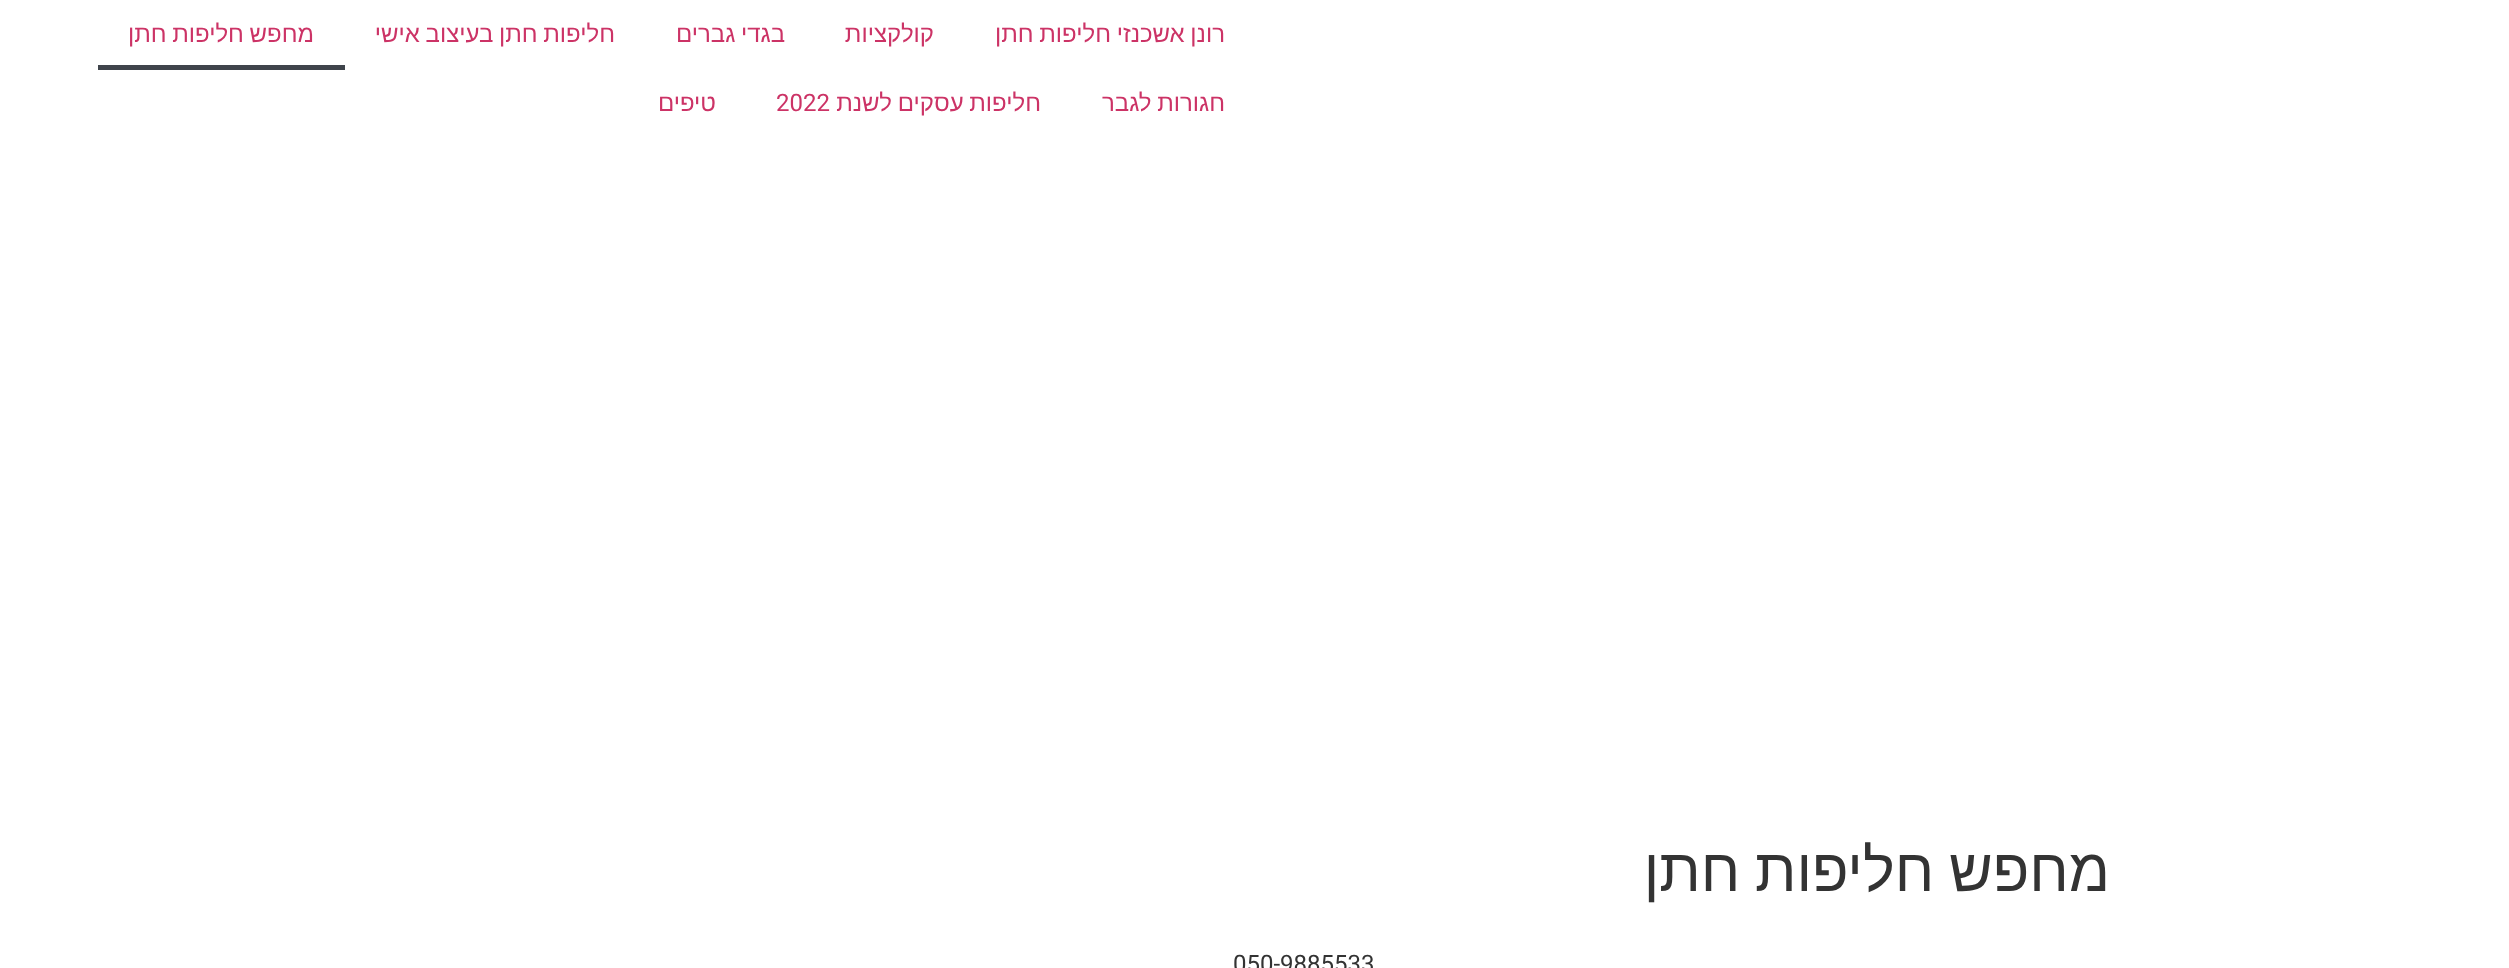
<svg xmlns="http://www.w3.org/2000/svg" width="2509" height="968">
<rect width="100%" height="100%" fill="#fff"/>
<text x="1225" y="42" word-spacing="-1" style="font-family:Liberation Sans;font-size:24px;direction:rtl;fill:#c36">רונן אשכנזי חליפות חתן</text>
<text x="934" y="42" style="font-family:Liberation Sans;font-size:24px;direction:rtl;fill:#c36">קולקציות</text>
<text x="785" y="42" word-spacing="-1" style="font-family:Liberation Sans;font-size:24px;direction:rtl;fill:#c36">בגדי גברים</text>
<text x="615" y="42" word-spacing="-1" style="font-family:Liberation Sans;font-size:24px;direction:rtl;fill:#c36">חליפות חתן בעיצוב אישי</text>
<text x="314" y="42" word-spacing="-1" style="font-family:Liberation Sans;font-size:24px;direction:rtl;fill:#c36">מחפש חליפות חתן</text>
<rect x="98" y="65" width="247" height="5" fill="#3f444b"/>
<text x="1225" y="111" word-spacing="-1" style="font-family:Liberation Sans;font-size:24px;direction:rtl;fill:#c36">חגורות לגבר</text>
<text x="1041" y="111" word-spacing="-1" style="font-family:Liberation Sans;font-size:24px;direction:rtl;fill:#c36">חליפות עסקים לשנת</text>
<text x="776" y="111" style="font-family:Roboto;font-size:24px;fill:#c36">2022</text>
<text x="716" y="111" style="font-family:Liberation Sans;font-size:24px;direction:rtl;fill:#c36">טיפים</text>
<text x="2110" y="891" word-spacing="-2" style="font-family:Liberation Sans;font-size:60px;direction:rtl;fill:#333">מחפש חליפות חתן</text>
<text x="1233" y="972" style="font-family:Roboto;font-size:24px;fill:#333">050-9885533</text>
</svg>
